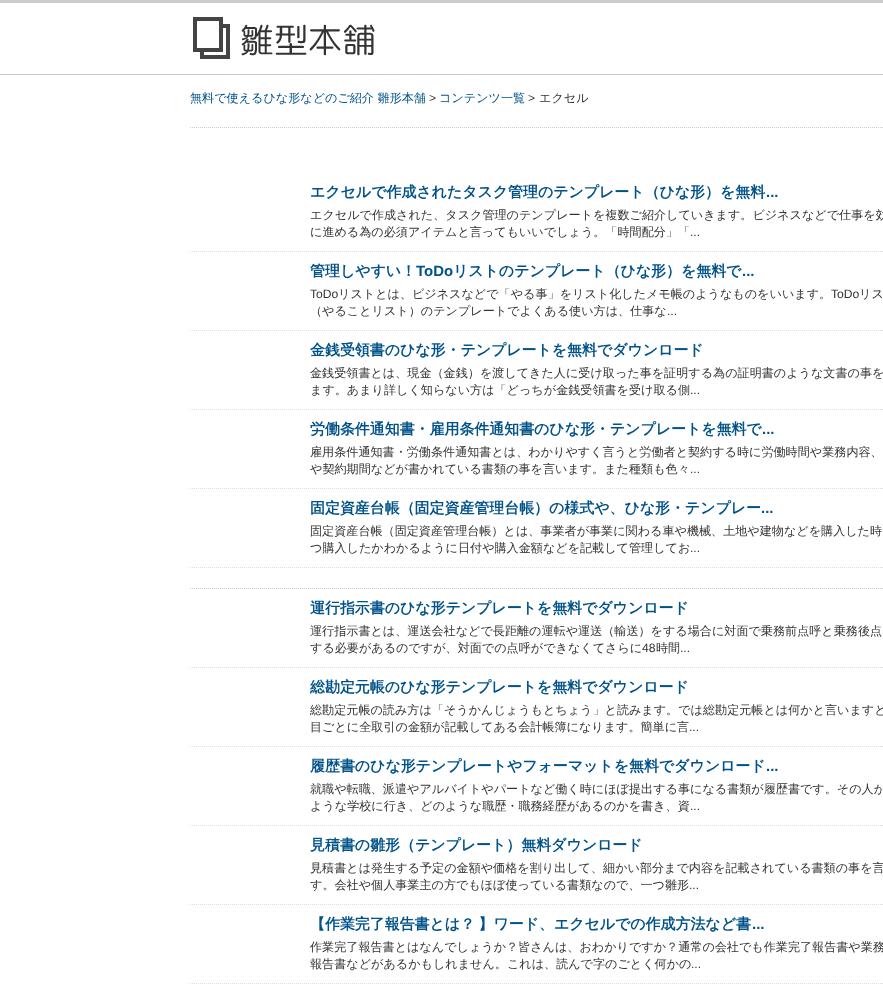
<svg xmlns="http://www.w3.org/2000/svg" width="883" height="989">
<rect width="100%" height="100%" fill="#fff"/>
<rect width="883" height="3" fill="#ccc"/>
<rect y="74" width="883" height="1" fill="#ccc"/>
<image x="193" y="17" width="182" height="42" href="media/1.png"/>
<text x="190" y="102" style="font-family:WenQuanYi Zen Hei;font-size:12.1px;font-weight:500;fill:#005288">無料で使えるひな形などのご紹介 雛形本舗</text>
<text x="429" y="102" style="font-family:Liberation Sans;font-size:12.1px;fill:#333">&gt;</text>
<text x="439" y="102" style="font-family:WenQuanYi Zen Hei;font-size:12.1px;font-weight:500;fill:#005288">コンテンツ一覧</text>
<text x="528" y="102" style="font-family:Liberation Sans;font-size:12.1px;fill:#333">&gt;</text>
<text x="539" y="102" style="font-family:WenQuanYi Zen Hei;font-size:12.1px;font-weight:500;fill:#333">エクセル</text>
<path d="M190 127.5h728" fill="none" stroke="#ccc" stroke-dasharray="1 1"/>
<path d="M190 251.5h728" fill="none" stroke="#ddd" stroke-dasharray="1 1"/>
<text x="310" y="197" style="font-family:WenQuanYi Zen Hei;font-size:14.95px;font-weight:bold;fill:#005288">エクセルで作成されたタスク管理のテンプレート（ひな形）を無料</text>
<text x="766" y="197" style="font-family:Liberation Sans;font-size:14.95px;font-weight:bold;fill:#005288">...</text>
<text x="310" y="219" style="font-family:WenQuanYi Zen Hei;font-size:12.1px;font-weight:500;fill:#333">エクセルで作成された、タスク管理のテンプレートを複数ご紹介していきます。ビジネスなどで仕事を効</text>
<text x="310" y="236" style="font-family:WenQuanYi Zen Hei;font-size:12.1px;font-weight:500;fill:#333">に進める為の必須アイテムと言ってもいいでしょう。「時間配分」「</text>
<text x="690" y="236" style="font-family:Liberation Sans;font-size:12.1px;fill:#333">...</text>
<path d="M190 330.5h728" fill="none" stroke="#ddd" stroke-dasharray="1 1"/>
<text x="310" y="276" style="font-family:WenQuanYi Zen Hei;font-size:14.95px;font-weight:bold;fill:#005288">管理しやすい！</text>
<text x="416" y="276" style="font-family:Liberation Sans;font-size:14.95px;font-weight:bold;fill:#005288">ToDo</text>
<text x="453" y="276" style="font-family:WenQuanYi Zen Hei;font-size:14.95px;font-weight:bold;fill:#005288">リストのテンプレート（ひな形）を無料で</text>
<text x="742" y="276" style="font-family:Liberation Sans;font-size:14.95px;font-weight:bold;fill:#005288">...</text>
<text x="310" y="298" style="font-family:Liberation Sans;font-size:12.1px;fill:#333">ToDo</text>
<text x="338" y="298" style="font-family:WenQuanYi Zen Hei;font-size:12.1px;font-weight:500;fill:#333">リストとは、ビジネスなどで「やる事」をリスト化したメモ帳のようなものをいいます。</text>
<text x="831" y="298" style="font-family:Liberation Sans;font-size:12.1px;fill:#333">ToDo</text>
<text x="859" y="298" style="font-family:WenQuanYi Zen Hei;font-size:12.1px;font-weight:500;fill:#333">リス</text>
<text x="310" y="315" style="font-family:WenQuanYi Zen Hei;font-size:12.1px;font-weight:500;fill:#333">（やることリスト）のテンプレートでよくある使い方は、仕事な</text>
<text x="667" y="315" style="font-family:Liberation Sans;font-size:12.1px;fill:#333">...</text>
<path d="M190 409.5h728" fill="none" stroke="#ddd" stroke-dasharray="1 1"/>
<text x="310" y="355" style="font-family:WenQuanYi Zen Hei;font-size:14.95px;font-weight:bold;fill:#005288">金銭受領書のひな形・テンプレートを無料でダウンロード</text>
<text x="310" y="377" style="font-family:WenQuanYi Zen Hei;font-size:12.1px;font-weight:500;fill:#333">金銭受領書とは、現金（金銭）を渡してきた人に受け取った事を証明する為の証明書のような文書の事を</text>
<text x="310" y="394" style="font-family:WenQuanYi Zen Hei;font-size:12.1px;font-weight:500;fill:#333">ます。あまり詳しく知らない方は「どっちが金銭受領書を受け取る側</text>
<text x="690" y="394" style="font-family:Liberation Sans;font-size:12.1px;fill:#333">...</text>
<path d="M190 488.5h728" fill="none" stroke="#ddd" stroke-dasharray="1 1"/>
<text x="310" y="434" style="font-family:WenQuanYi Zen Hei;font-size:14.95px;font-weight:bold;fill:#005288">労働条件通知書・雇用条件通知書のひな形・テンプレートを無料で</text>
<text x="762" y="434" style="font-family:Liberation Sans;font-size:14.95px;font-weight:bold;fill:#005288">...</text>
<text x="310" y="456" style="font-family:WenQuanYi Zen Hei;font-size:12.1px;font-weight:500;fill:#333">雇用条件通知書・労働条件通知書とは、わかりやすく言うと労働者と契約する時に労働時間や業務内容、</text>
<text x="310" y="473" style="font-family:WenQuanYi Zen Hei;font-size:12.1px;font-weight:500;fill:#333">や契約期間などが書かれている書類の事を言います。また種類も色々</text>
<text x="690" y="473" style="font-family:Liberation Sans;font-size:12.1px;fill:#333">...</text>
<path d="M190 567.5h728" fill="none" stroke="#ddd" stroke-dasharray="1 1"/>
<text x="310" y="513" style="font-family:WenQuanYi Zen Hei;font-size:14.95px;font-weight:bold;fill:#005288">固定資産台帳（固定資産管理台帳）の様式や、ひな形・テンプレー</text>
<text x="761" y="513" style="font-family:Liberation Sans;font-size:14.95px;font-weight:bold;fill:#005288">...</text>
<text x="310" y="535" style="font-family:WenQuanYi Zen Hei;font-size:12.1px;font-weight:500;fill:#333">固定資産台帳（固定資産管理台帳）とは、事業者が事業に関わる車や機械、土地や建物などを購入した時</text>
<text x="310" y="552" style="font-family:WenQuanYi Zen Hei;font-size:12.1px;font-weight:500;fill:#333">つ購入したかわかるように日付や購入金額などを記載して管理してお</text>
<text x="690" y="552" style="font-family:Liberation Sans;font-size:12.1px;fill:#333">...</text>
<path d="M190 588.5h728" fill="none" stroke="#ccc" stroke-dasharray="1 1"/>
<path d="M190 667.5h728" fill="none" stroke="#ddd" stroke-dasharray="1 1"/>
<text x="310" y="613" style="font-family:WenQuanYi Zen Hei;font-size:14.95px;font-weight:bold;fill:#005288">運行指示書のひな形テンプレートを無料でダウンロード</text>
<text x="310" y="635" style="font-family:WenQuanYi Zen Hei;font-size:12.1px;font-weight:500;fill:#333">運行指示書とは、運送会社などで長距離の運転や運送（輸送）をする場合に対面で乗務前点呼と乗務後点</text>
<text x="310" y="652" style="font-family:WenQuanYi Zen Hei;font-size:12.1px;font-weight:500;fill:#333">する必要があるのですが、対面での点呼ができなくてさらに</text>
<text x="642" y="652" style="font-family:Liberation Sans;font-size:12.1px;fill:#333">48</text>
<text x="656" y="652" style="font-family:WenQuanYi Zen Hei;font-size:12.1px;font-weight:500;fill:#333">時間</text>
<text x="680" y="652" style="font-family:Liberation Sans;font-size:12.1px;fill:#333">...</text>
<path d="M190 746.5h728" fill="none" stroke="#ddd" stroke-dasharray="1 1"/>
<text x="310" y="692" style="font-family:WenQuanYi Zen Hei;font-size:14.95px;font-weight:bold;fill:#005288">総勘定元帳のひな形テンプレートを無料でダウンロード</text>
<text x="310" y="714" style="font-family:WenQuanYi Zen Hei;font-size:12.1px;font-weight:500;fill:#333">総勘定元帳の読み方は「そうかんじょうもとちょう」と読みます。では総勘定元帳とは何かと言いますと</text>
<text x="310" y="731" style="font-family:WenQuanYi Zen Hei;font-size:12.1px;font-weight:500;fill:#333">目ごとに全取引の金額が記載してある会計帳簿になります。簡単に言</text>
<text x="689" y="731" style="font-family:Liberation Sans;font-size:12.1px;fill:#333">...</text>
<path d="M190 825.5h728" fill="none" stroke="#ddd" stroke-dasharray="1 1"/>
<text x="310" y="771" style="font-family:WenQuanYi Zen Hei;font-size:14.95px;font-weight:bold;fill:#005288">履歴書のひな形テンプレートやフォーマットを無料でダウンロード</text>
<text x="766" y="771" style="font-family:Liberation Sans;font-size:14.95px;font-weight:bold;fill:#005288">...</text>
<text x="310" y="793" style="font-family:WenQuanYi Zen Hei;font-size:12.1px;font-weight:500;fill:#333">就職や転職、派遣やアルバイトやパートなど働く時にほぼ提出する事になる書類が履歴書です。その人が</text>
<text x="310" y="810" style="font-family:WenQuanYi Zen Hei;font-size:12.1px;font-weight:500;fill:#333">ような学校に行き、どのような職歴・職務経歴があるのかを書き、資</text>
<text x="690" y="810" style="font-family:Liberation Sans;font-size:12.1px;fill:#333">...</text>
<path d="M190 904.5h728" fill="none" stroke="#ddd" stroke-dasharray="1 1"/>
<text x="310" y="850" style="font-family:WenQuanYi Zen Hei;font-size:14.95px;font-weight:bold;fill:#005288">見積書の雛形（テンプレート）無料ダウンロード</text>
<text x="310" y="872" style="font-family:WenQuanYi Zen Hei;font-size:12.1px;font-weight:500;fill:#333">見積書とは発生する予定の金額や価格を割り出して、細かい部分まで内容を記載されている書類の事を言</text>
<text x="310" y="889" style="font-family:WenQuanYi Zen Hei;font-size:12.1px;font-weight:500;fill:#333">す。会社や個人事業主の方でもほぼ使っている書類なので、一つ雛形</text>
<text x="689" y="889" style="font-family:Liberation Sans;font-size:12.1px;fill:#333">...</text>
<path d="M190 983.5h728" fill="none" stroke="#ddd" stroke-dasharray="1 1"/>
<text x="310" y="929" word-spacing="-1" style="font-family:WenQuanYi Zen Hei;font-size:14.95px;font-weight:bold;fill:#005288">【作業完了報告書とは？ 】ワード、エクセルでの作成方法など書</text>
<text x="752" y="929" style="font-family:Liberation Sans;font-size:14.95px;font-weight:bold;fill:#005288">...</text>
<text x="310" y="951" style="font-family:WenQuanYi Zen Hei;font-size:12.1px;font-weight:500;fill:#333">作業完了報告書とはなんでしょうか？皆さんは、おわかりですか？通常の会社でも作業完了報告書や業務</text>
<text x="310" y="968" style="font-family:WenQuanYi Zen Hei;font-size:12.1px;font-weight:500;fill:#333">報告書などがあるかもしれません。これは、読んで字のごとく何かの</text>
<text x="691" y="968" style="font-family:Liberation Sans;font-size:12.1px;fill:#333">...</text>
</svg>
